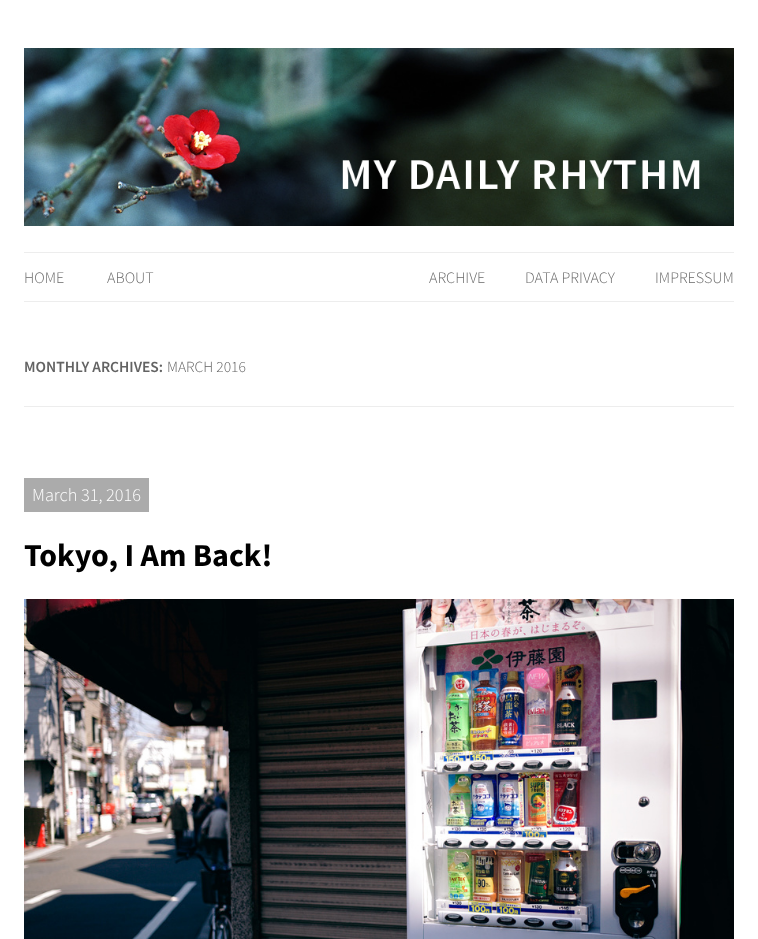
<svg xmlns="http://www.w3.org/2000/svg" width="758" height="939">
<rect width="100%" height="100%" fill="#fff"/>
<image x="24" y="48" width="710" height="178" href="media/1.png"/>
<rect x="24" y="252" width="710" height="1" fill="#ededed"/>
<rect x="24" y="301" width="710" height="1" fill="#ededed"/>
<text x="24" y="283" style="font-family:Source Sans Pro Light;font-size:16px;font-weight:300;fill:#6a6a6a">HOME</text>
<text x="107" y="283" style="font-family:Source Sans Pro Light;font-size:16px;font-weight:300;fill:#6a6a6a">ABOUT</text>
<text x="429" y="283" style="font-family:Source Sans Pro Light;font-size:16px;font-weight:300;fill:#6a6a6a">ARCHIVE</text>
<text x="525" y="283" style="font-family:Source Sans Pro Light;font-size:16px;font-weight:300;fill:#6a6a6a">DATA PRIVACY</text>
<text x="655" y="283" style="font-family:Source Sans Pro Light;font-size:16px;font-weight:300;fill:#6a6a6a">IMPRESSUM</text>
<rect x="24" y="406" width="710" height="1" fill="#ededed"/>
<text x="24" y="372" style="font-family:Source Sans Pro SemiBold;font-size:15.5px;font-weight:600;fill:#636363">MONTHLY ARCHIVES:</text>
<text x="167" y="372" style="font-family:Source Sans Pro Light;font-size:15.5px;font-weight:300;fill:#636363">MARCH 2016</text>
<rect x="24" y="478" width="125" height="34" fill="#ababab"/>
<text x="32" y="501" style="font-family:Source Sans Pro Light;font-size:18.25px;font-weight:300;fill:#fff">March 31, 2016</text>
<text x="24" y="566" style="font-family:Source Sans Pro;font-size:32px;font-weight:bold;fill:#000">Tokyo, I Am Back!</text>
<image x="24" y="599" width="710" height="340" href="media/2.png"/>
</svg>
